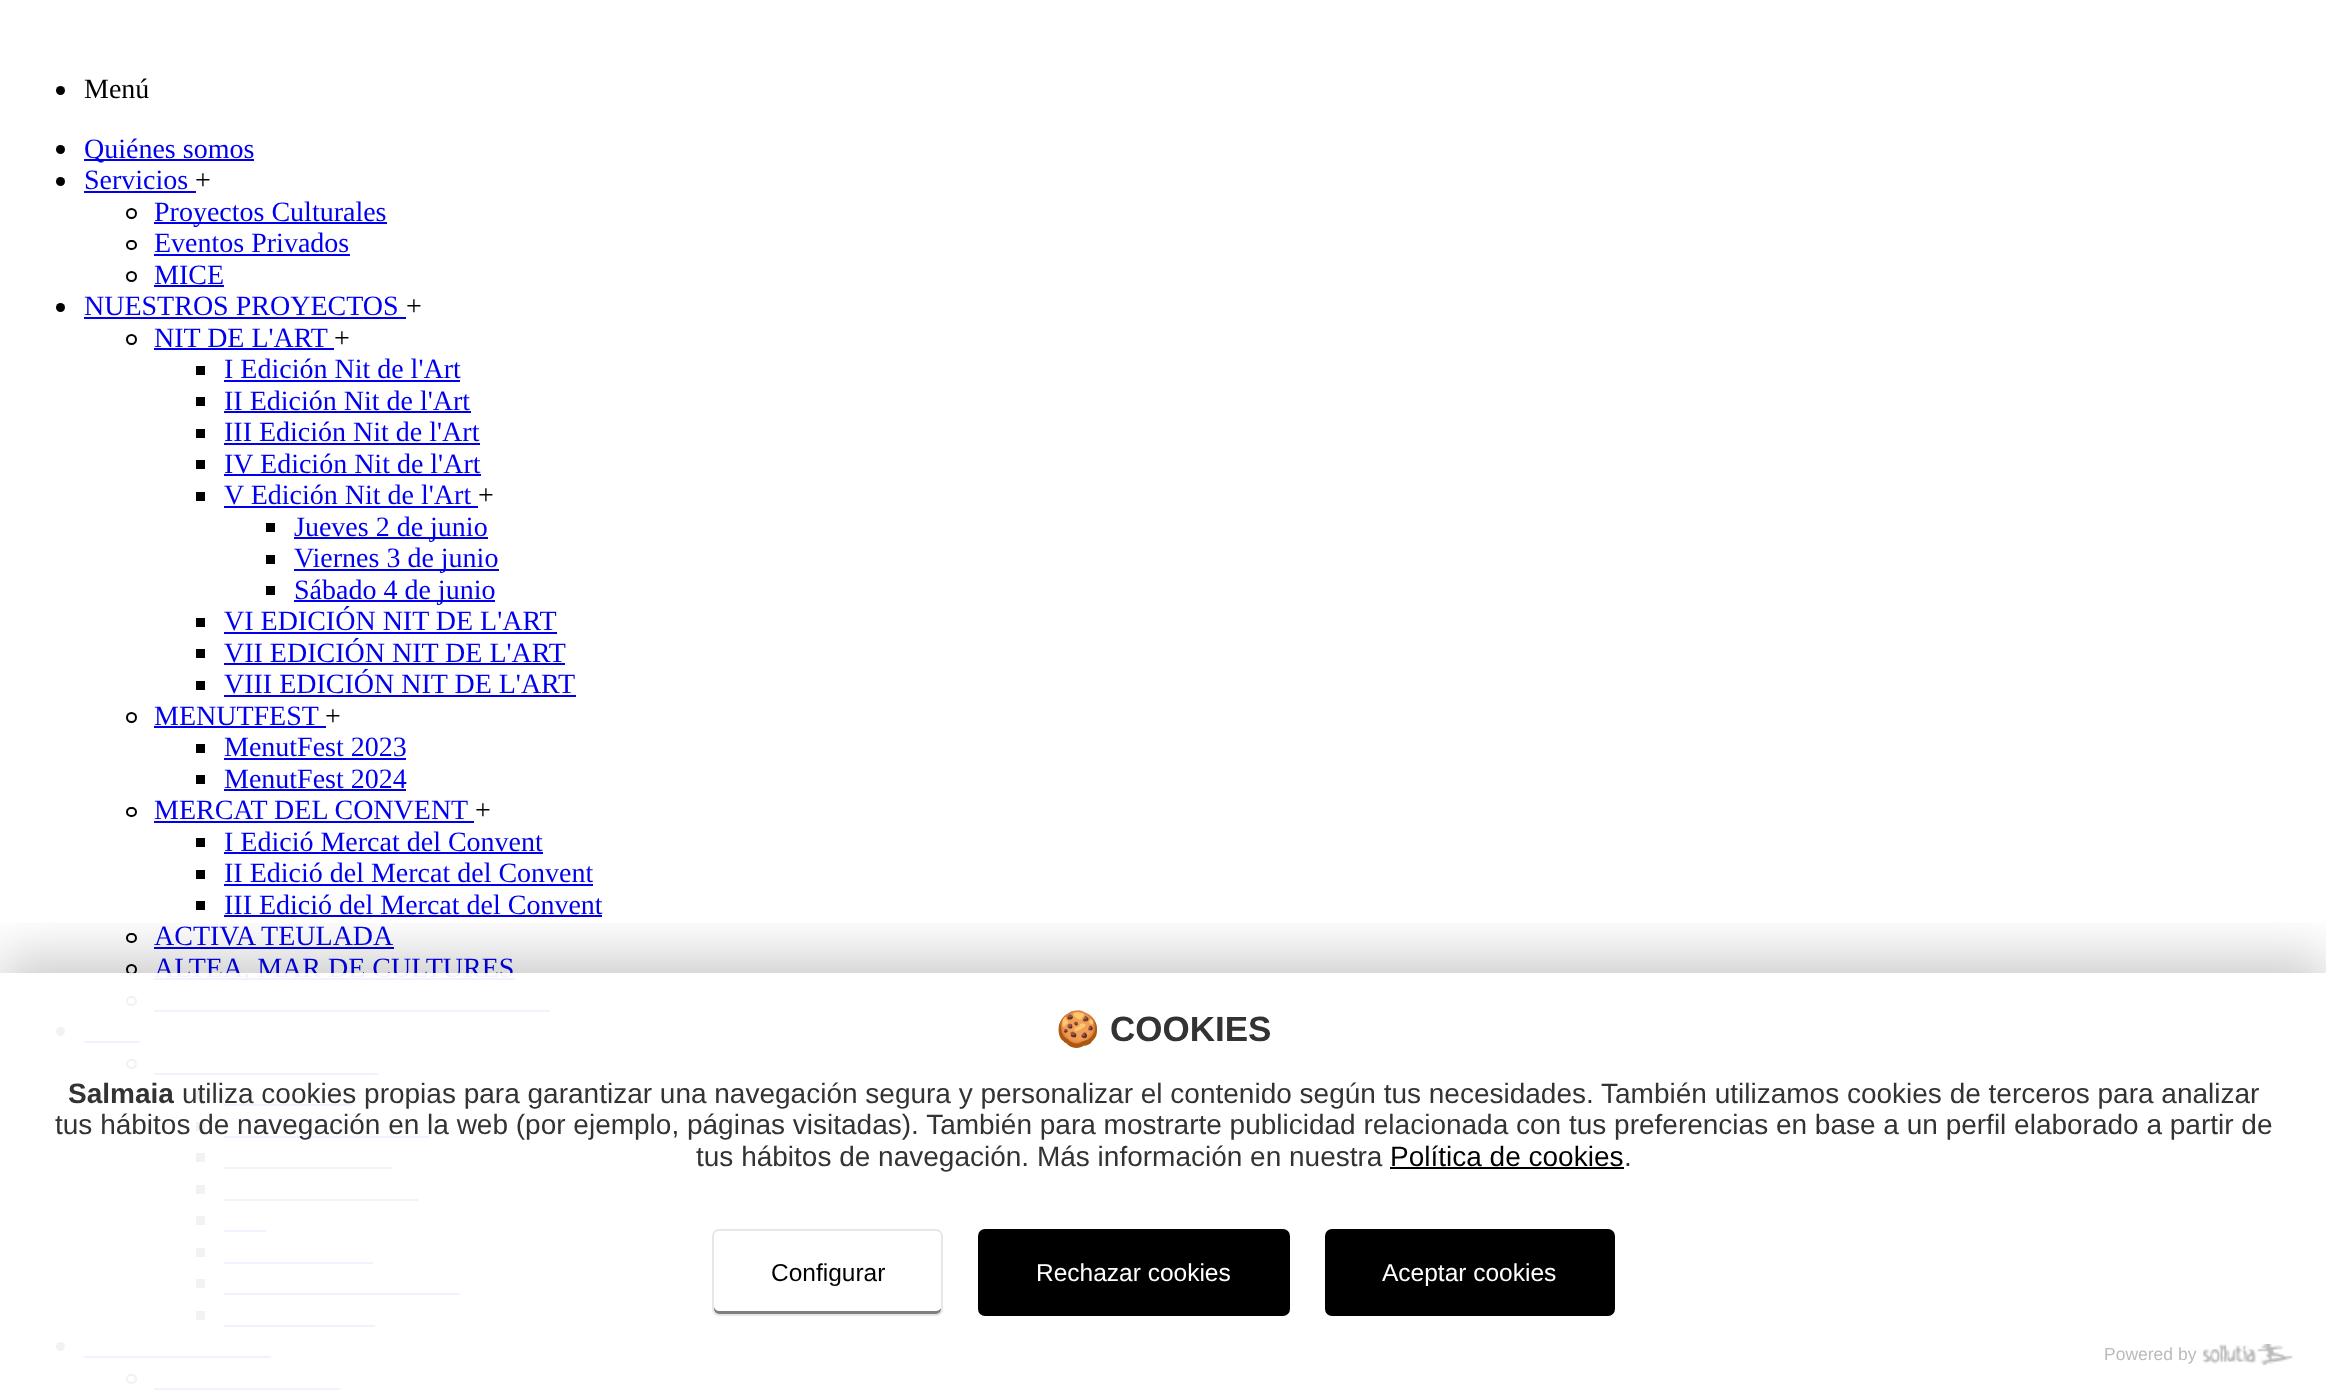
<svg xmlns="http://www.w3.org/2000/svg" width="2326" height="1400">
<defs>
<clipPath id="clip1"><rect x="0" y="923" width="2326" height="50"/></clipPath>
</defs>
<rect width="100%" height="100%" fill="#fff"/>
<circle cx="60.5" cy="90.5" r="4.5" fill="#000"/>
<text x="84" y="98" style="font-family:Liberation Serif;font-size:28px;fill:#000">Menú</text>
<circle cx="60.5" cy="149.5" r="4.5" fill="#000"/>
<rect x="84" y="159" width="170" height="2" fill="#00e"/>
<text x="84" y="158" style="font-family:Liberation Serif;font-size:28px;fill:#00e">Quiénes somos</text>
<circle cx="60.5" cy="181.5" r="4.5" fill="#000"/>
<text x="84" y="189" style="font-family:Liberation Serif;font-size:28px;fill:#00e">Servicios</text>
<rect x="84" y="191" width="112" height="2" fill="#00e"/>
<text x="195" y="189" style="font-family:Liberation Serif;font-size:28px;fill:#000">+</text>
<circle cx="131.5" cy="213.5" r="4.5" fill="none" stroke="#000" stroke-width="2"/>
<rect x="154" y="222" width="233" height="2" fill="#00e"/>
<text x="154" y="221" style="font-family:Liberation Serif;font-size:28px;fill:#00e">Proyectos Culturales</text>
<rect x="127" y="241" width="9" height="8" rx="4" fill="none" stroke="#000" stroke-width="2"/>
<text x="154" y="252" style="font-family:Liberation Serif;font-size:28px;fill:#00e">Eventos Privados</text>
<rect x="154" y="254" width="196" height="2" fill="#00e"/>
<circle cx="131.5" cy="276.5" r="4.5" fill="none" stroke="#000" stroke-width="2"/>
<text x="154" y="284" style="font-family:Liberation Serif;font-size:28px;fill:#00e">MICE</text>
<rect x="154" y="285" width="70" height="2" fill="#00e"/>
<circle cx="60.5" cy="307.5" r="4.5" fill="#000"/>
<text x="84" y="315" style="font-family:Liberation Serif;font-size:28px;fill:#00e">NUESTROS PROYECTOS</text>
<rect x="84" y="317" width="322" height="2" fill="#00e"/>
<text x="406" y="315" style="font-family:Liberation Serif;font-size:28px;fill:#000">+</text>
<circle cx="131.5" cy="339.5" r="4.5" fill="none" stroke="#000" stroke-width="2"/>
<text x="154" y="347" style="font-family:Liberation Serif;font-size:28px;fill:#00e">NIT DE L'ART</text>
<rect x="154" y="348" width="180" height="2" fill="#00e"/>
<text x="334" y="347" style="font-family:Liberation Serif;font-size:28px;fill:#000">+</text>
<rect x="196" y="366" width="9" height="9" fill="#000"/>
<text x="224" y="378" style="font-family:Liberation Serif;font-size:28px;fill:#00e">I Edición Nit de l'Art</text>
<rect x="224" y="380" width="236" height="2" fill="#00e"/>
<rect x="196" y="397" width="9" height="9" fill="#000"/>
<text x="224" y="410" style="font-family:Liberation Serif;font-size:28px;fill:#00e">II Edición Nit de l'Art</text>
<rect x="224" y="411" width="247" height="2" fill="#00e"/>
<rect x="196" y="429" width="9" height="9" fill="#000"/>
<text x="224" y="441" style="font-family:Liberation Serif;font-size:28px;fill:#00e">III Edición Nit de l'Art</text>
<rect x="224" y="443" width="256" height="2" fill="#00e"/>
<rect x="196" y="460" width="9" height="9" fill="#000"/>
<text x="224" y="473" style="font-family:Liberation Serif;font-size:28px;fill:#00e">IV Edición Nit de l'Art</text>
<rect x="224" y="474" width="257" height="2" fill="#00e"/>
<rect x="196" y="492" width="9" height="9" fill="#000"/>
<text x="224" y="504" style="font-family:Liberation Serif;font-size:28px;fill:#00e">V Edición Nit de l'Art</text>
<rect x="224" y="506" width="254" height="2" fill="#00e"/>
<text x="478" y="504" style="font-family:Liberation Serif;font-size:28px;fill:#000">+</text>
<rect x="266" y="523" width="9" height="9" fill="#000"/>
<rect x="294" y="537" width="194" height="2" fill="#00e"/>
<text x="294" y="536" style="font-family:Liberation Serif;font-size:28px;fill:#00e">Jueves 2 de junio</text>
<rect x="266" y="555" width="9" height="9" fill="#000"/>
<rect x="294" y="569" width="205" height="2" fill="#00e"/>
<text x="294" y="567" style="font-family:Liberation Serif;font-size:28px;fill:#00e">Viernes 3 de junio</text>
<rect x="266" y="586" width="9" height="9" fill="#000"/>
<rect x="294" y="600" width="201" height="2" fill="#00e"/>
<text x="294" y="599" style="font-family:Liberation Serif;font-size:28px;fill:#00e">Sábado 4 de junio</text>
<rect x="196" y="618" width="9" height="9" fill="#000"/>
<text x="224" y="630" style="font-family:Liberation Serif;font-size:28px;fill:#00e">VI EDICIÓN NIT DE L'ART</text>
<rect x="224" y="632" width="333" height="2" fill="#00e"/>
<rect x="196" y="649" width="9" height="9" fill="#000"/>
<text x="224" y="662" style="font-family:Liberation Serif;font-size:28px;fill:#00e">VII EDICIÓN NIT DE L'ART</text>
<rect x="224" y="663" width="341" height="2" fill="#00e"/>
<rect x="196" y="681" width="9" height="9" fill="#000"/>
<text x="224" y="693" style="font-family:Liberation Serif;font-size:28px;fill:#00e">VIII EDICIÓN NIT DE L'ART</text>
<rect x="224" y="695" width="352" height="2" fill="#00e"/>
<circle cx="131.5" cy="717.5" r="4.5" fill="none" stroke="#000" stroke-width="2"/>
<text x="154" y="725" style="font-family:Liberation Serif;font-size:28px;fill:#00e">MENUTFEST</text>
<rect x="154" y="726" width="172" height="2" fill="#00e"/>
<text x="325" y="725" style="font-family:Liberation Serif;font-size:28px;fill:#000">+</text>
<rect x="196" y="744" width="9" height="9" fill="#000"/>
<text x="224" y="756" style="font-family:Liberation Serif;font-size:28px;fill:#00e">MenutFest 2023</text>
<rect x="224" y="758" width="182" height="2" fill="#00e"/>
<rect x="196" y="775" width="9" height="9" fill="#000"/>
<text x="224" y="788" style="font-family:Liberation Serif;font-size:28px;fill:#00e">MenutFest 2024</text>
<rect x="224" y="789" width="182" height="2" fill="#00e"/>
<rect x="127" y="808" width="9" height="8" rx="4" fill="none" stroke="#000" stroke-width="2"/>
<text x="154" y="819" style="font-family:Liberation Serif;font-size:28px;fill:#00e">MERCAT DEL CONVENT</text>
<rect x="154" y="821" width="320" height="2" fill="#00e"/>
<text x="475" y="819" style="font-family:Liberation Serif;font-size:28px;fill:#000">+</text>
<rect x="196" y="838" width="9" height="9" fill="#000"/>
<text x="224" y="851" style="font-family:Liberation Serif;font-size:28px;fill:#00e">I Edició Mercat del Convent</text>
<rect x="224" y="852" width="319" height="2" fill="#00e"/>
<rect x="196" y="870" width="9" height="9" fill="#000"/>
<text x="224" y="882" style="font-family:Liberation Serif;font-size:28px;fill:#00e">II Edició del Mercat del Convent</text>
<rect x="224" y="884" width="369" height="2" fill="#00e"/>
<rect x="196" y="901" width="9" height="9" fill="#000"/>
<text x="224" y="914" style="font-family:Liberation Serif;font-size:28px;fill:#00e">III Edició del Mercat del Convent</text>
<rect x="224" y="915" width="378" height="2" fill="#00e"/>
<rect x="127" y="934" width="9" height="8" rx="4" fill="none" stroke="#000" stroke-width="2"/>
<text x="154" y="945" style="font-family:Liberation Serif;font-size:28px;fill:#00e">ACTIVA TEULADA</text>
<rect x="154" y="947" width="240" height="2" fill="#00e"/>
<circle cx="131.5" cy="969.5" r="4.5" fill="none" stroke="#000" stroke-width="2"/>
<rect x="154" y="978" width="361" height="2" fill="#00e"/>
<text x="154" y="977" style="font-family:Liberation Serif;font-size:28px;fill:#00e">ALTEA, MAR DE CULTURES</text>
<rect x="127" y="997" width="9" height="8" rx="4" fill="none" stroke="#000" stroke-width="2"/>
<rect x="154" y="1010" width="396" height="2" fill="#00e"/>
<circle cx="60.5" cy="1031.5" r="4.5" fill="#000"/>
<rect x="84" y="1041" width="56" height="2" fill="#00e"/>
<rect x="127" y="1060" width="9" height="8" rx="4" fill="none" stroke="#000" stroke-width="2"/>
<rect x="154" y="1073" width="224" height="2" fill="#00e"/>
<rect x="196" y="1090" width="9" height="9" fill="#000"/>
<rect x="224" y="1104" width="128" height="2" fill="#00e"/>
<rect x="196" y="1122" width="9" height="9" fill="#000"/>
<rect x="224" y="1136" width="205" height="2" fill="#00e"/>
<rect x="196" y="1153" width="9" height="9" fill="#000"/>
<rect x="224" y="1167" width="168" height="2" fill="#00e"/>
<rect x="196" y="1185" width="9" height="9" fill="#000"/>
<rect x="224" y="1199" width="194" height="2" fill="#00e"/>
<rect x="196" y="1216" width="9" height="9" fill="#000"/>
<rect x="224" y="1230" width="42" height="2" fill="#00e"/>
<rect x="196" y="1248" width="9" height="9" fill="#000"/>
<rect x="224" y="1262" width="149" height="2" fill="#00e"/>
<rect x="196" y="1279" width="9" height="9" fill="#000"/>
<rect x="224" y="1293" width="236" height="2" fill="#00e"/>
<rect x="196" y="1311" width="9" height="9" fill="#000"/>
<rect x="224" y="1325" width="151" height="2" fill="#00e"/>
<circle cx="60.5" cy="1346.5" r="4.5" fill="#000"/>
<rect x="84" y="1356" width="187" height="2" fill="#00e"/>
<rect x="127" y="1375" width="9" height="8" rx="4" fill="none" stroke="#000" stroke-width="2"/>
<rect x="154" y="1388" width="186" height="2" fill="#00e"/>
<g clip-path="url(#clip1)">
<rect y="956" width="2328" height="427" fill="#00000033" filter="blur(26px)"/>
</g>
<rect x="56" y="973" width="494" height="417" fill="#fffffff2"/>
<text x="1056" y="1041" style="font-family:Noto Color Emoji;font-size:35px;fill:#333">🍪</text>
<text x="1110" y="1041" style="font-family:Liberation Sans;font-size:35px;font-weight:bold;fill:#333">COOKIES</text>
<text x="68" y="1103" style="font-family:Liberation Sans;font-size:28px;font-weight:bold;fill:#333">Salmaia</text>
<text x="182" y="1103" style="font-family:Liberation Sans;font-size:28px;fill:#333">utiliza cookies propias para garantizar una navegación segura y personalizar el contenido según tus necesidades. También utilizamos cookies de terceros para analizar</text>
<text x="55" y="1134" style="font-family:Liberation Sans;font-size:28px;fill:#333">tus hábitos de navegación en la web (por ejemplo, páginas visitadas). También para mostrarte publicidad relacionada con tus preferencias en base a un perfil elaborado a partir de</text>
<text x="696" y="1166" style="font-family:Liberation Sans;font-size:28px;fill:#333">tus hábitos de navegación. Más información en nuestra</text>
<text x="1390" y="1166" style="font-family:Liberation Sans;font-size:28px;fill:#000">Política de cookies</text>
<rect x="1390" y="1167" width="234" height="2" fill="#000"/>
<text x="1624" y="1166" style="font-family:Liberation Sans;font-size:28px;fill:#333">.</text>
<path d="M714 1306v3c0 3 2 5 5 5h218c3 0 5-2 5-5v-3c0 2-3 5-6 5h-217c-3 0-5-3-5-5z" fill="#7f7f7f"/>
<rect x="713" y="1230" width="229" height="85" rx="6" fill="none" stroke="#e7e7e7" stroke-width="2"/>
<text x="771" y="1281" style="font-family:Liberation Sans;font-size:24.5px;fill:#000">Configurar</text>
<rect x="979" y="1230" width="310" height="85" rx="6" fill="#000" stroke="#000" stroke-width="2"/>
<text x="1036" y="1281" style="font-family:Liberation Sans;font-size:24.5px;fill:#fff">Rechazar cookies</text>
<rect x="1326" y="1230" width="288" height="85" rx="6" fill="#000" stroke="#000" stroke-width="2"/>
<text x="1382" y="1281" style="font-family:Liberation Sans;font-size:24.5px;fill:#fff">Aceptar cookies</text>
<text x="2104" y="1360" style="font-family:Liberation Sans;font-size:17.5px;fill:#bbb">Powered by</text>
<image x="2203" y="1344" width="90" height="21" href="media/1.png"/>
</svg>
